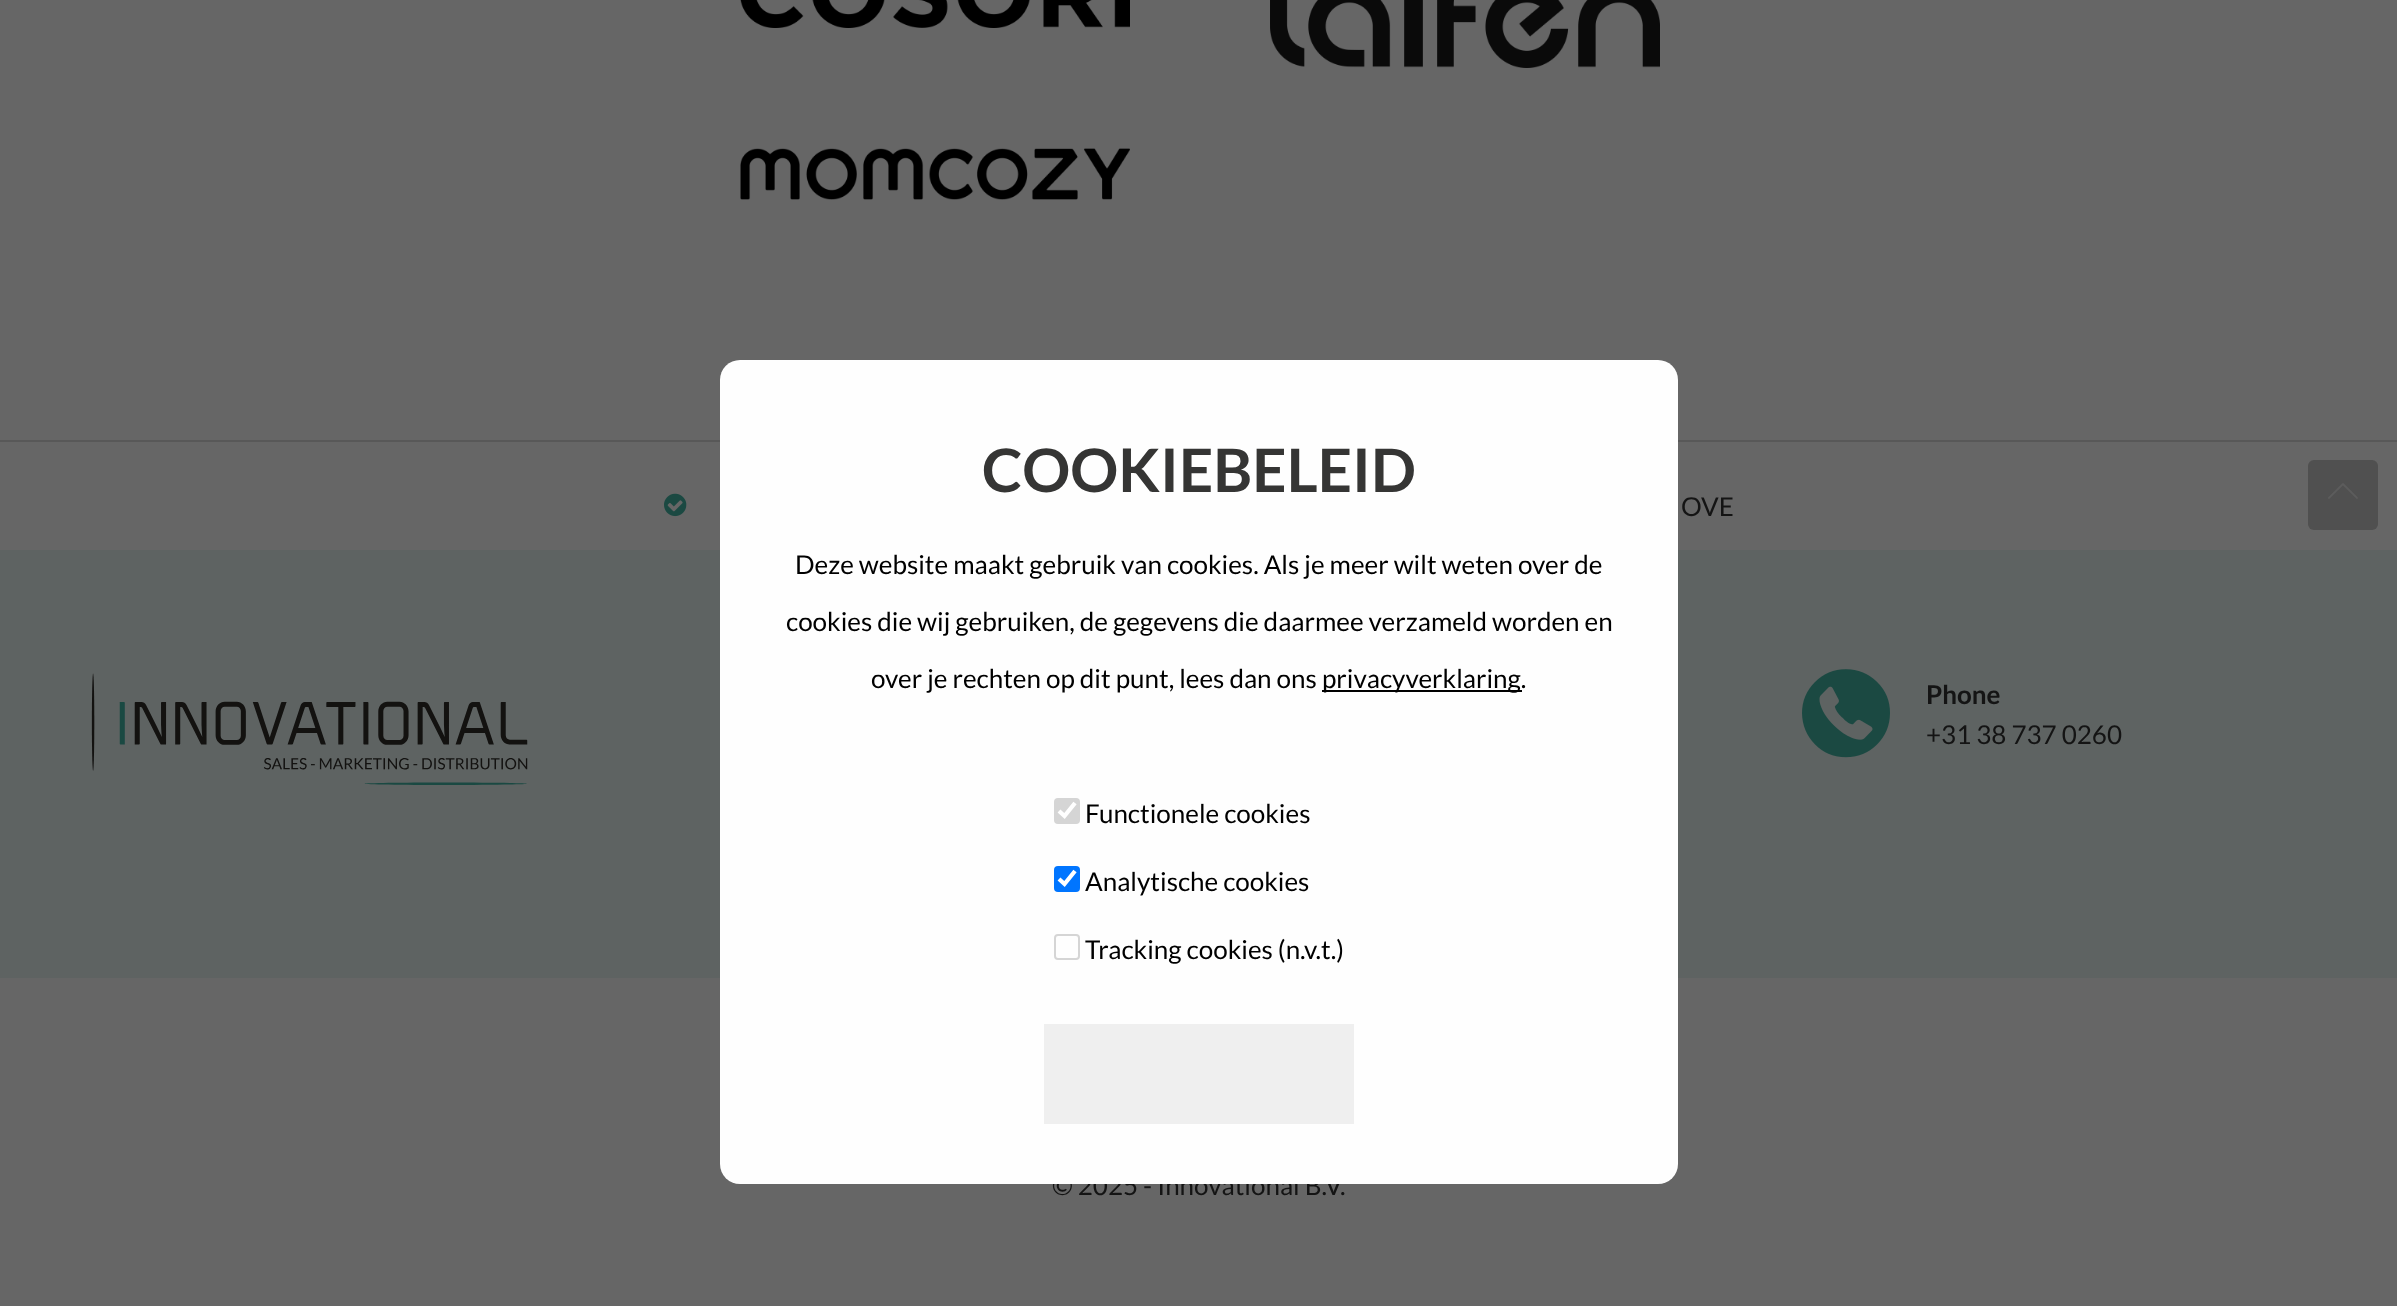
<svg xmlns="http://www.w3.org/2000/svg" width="2397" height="1306">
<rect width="100%" height="100%" fill="#666"/>
<rect y="440" width="2397" height="2" fill="#585858"/>
<rect y="550" width="2397" height="428" fill="#5e6362"/>
<text x="1052" y="1195" style="font-family:Lato;font-size:26px;fill:#141414">© 2025 - Innovational B.V.</text>
<rect x="720" y="360" width="958" height="824" rx="20" fill="#fefefe"/>
<text x="982" y="492" style="font-family:Lato;font-size:60px;font-weight:bold;fill:#353534">COOKIEBELEID</text>
<text x="795" y="574" style="font-family:Lato;font-size:26px;fill:#000">Deze website maakt gebruik van cookies. Als je meer wilt weten over de</text>
<text x="786" y="631" style="font-family:Lato;font-size:26px;fill:#000">cookies die wij gebruiken, de gegevens die daarmee verzameld worden en</text>
<text x="871" y="688" style="font-family:Lato;font-size:26px;fill:#000">over je rechten op dit punt, lees dan ons</text>
<rect x="1322" y="690" width="200" height="2" fill="#000"/>
<text x="1322" y="688" style="font-family:Lato;font-size:26px;fill:#000">privacyverklaring.</text>
<rect x="1054" y="798" width="26" height="26" rx="4" fill="#d5d5d5"/>
<path d="M1059 811l5.5 5l10.5-13" fill="none" stroke="#fff" stroke-width="4.2"/>
<text x="1085" y="823" style="font-family:Lato;font-size:26px;fill:#000">Functionele cookies</text>
<rect x="1054" y="866" width="26" height="26" rx="4" fill="#0075ff"/>
<path d="M1059 879l5.5 5l10.5-13" fill="none" stroke="#fff" stroke-width="4.2"/>
<text x="1085" y="891" style="font-family:Lato;font-size:26px;fill:#000">Analytische cookies</text>
<rect x="1055" y="935" width="24" height="24" rx="3" fill="none" stroke="#d5d5d5" stroke-width="2"/>
<text x="1085" y="959" style="font-family:Lato;font-size:26px;fill:#000">Tracking cookies (n.v.t.)</text>
<rect x="1044" y="1024" width="310" height="100" fill="#efefef"/>
<image x="740" y="0" width="390" height="28" href="media/1.png"/>
<image x="1270" y="0" width="390" height="68" href="media/2.png"/>
<image x="740" y="148" width="390" height="52" href="media/3.png"/>
<image x="664" y="493" width="23" height="24" href="media/4.png"/>
<text x="1681" y="516" style="font-family:Lato;font-size:26px;fill:#141414">OVE</text>
<rect x="2308" y="460" width="70" height="70" rx="6" fill="#505050"/>
<image x="2328" y="483" width="30" height="16" href="media/5.png"/>
<image x="91" y="673" width="437" height="112" href="media/6.png"/>
<image x="1802" y="669" width="88" height="89" href="media/7.png"/>
<text x="1926" y="704" style="font-family:Lato;font-size:26px;font-weight:bold;fill:#141414">Phone</text>
<text x="1926" y="744" style="font-family:Lato;font-size:26px;fill:#141414">+31 38 737 0260</text>
</svg>
